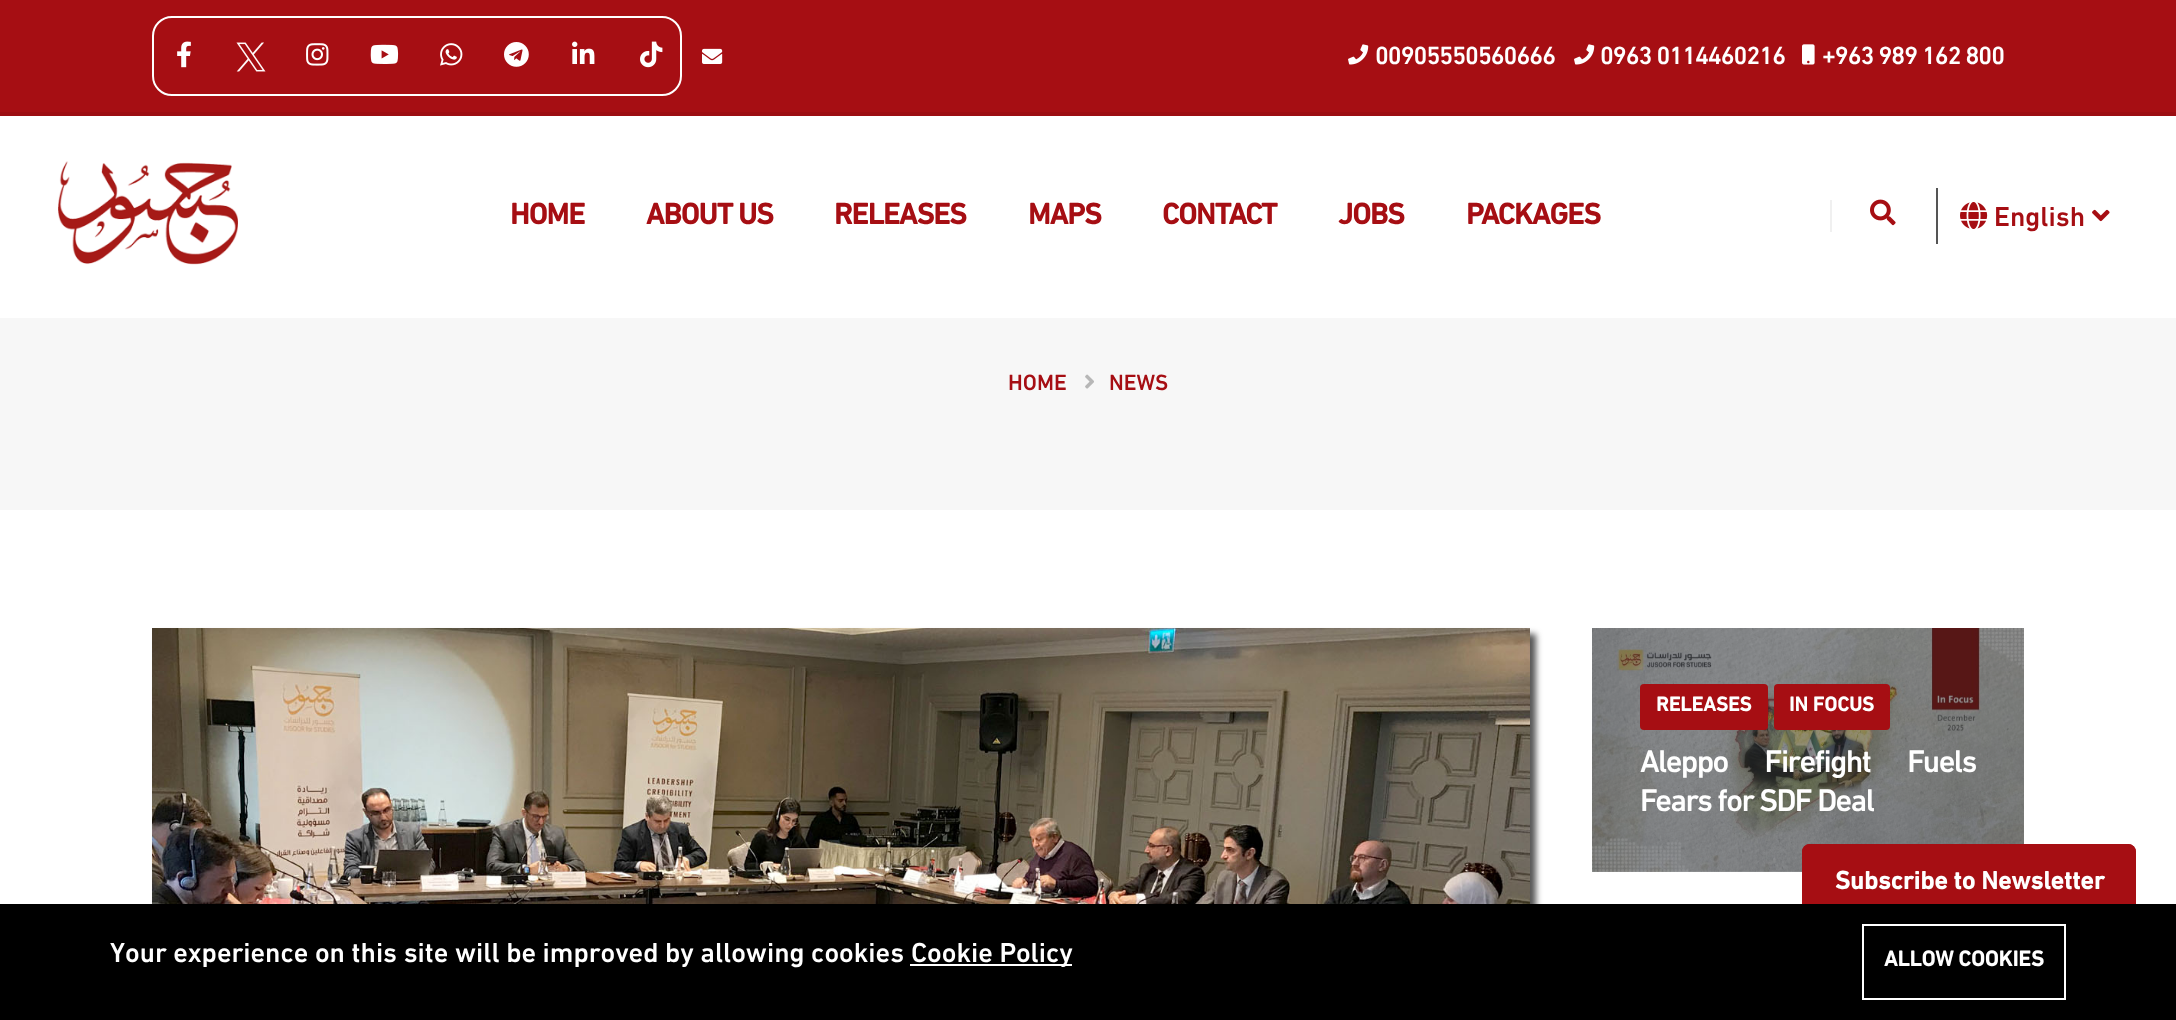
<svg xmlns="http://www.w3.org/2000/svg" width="2176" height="1020">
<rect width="100%" height="100%" fill="#fff"/>
<rect width="2176" height="112" fill="#a60e13"/>
<rect y="112" width="2176" height="4" fill="#9c0d12"/>
<rect x="153" y="17" width="528" height="78" rx="19" fill="none" stroke="#fff" stroke-width="2"/>
<image x="177" y="41" width="14" height="27" href="media/1.png"/>
<image x="236" y="42" width="30" height="30" href="media/2.png"/>
<image x="306" y="43" width="23" height="23" href="media/3.png"/>
<image x="370" y="44" width="29" height="20" href="media/4.png"/>
<image x="440" y="43" width="23" height="23" href="media/5.png"/>
<image x="504" y="42" width="25" height="25" href="media/6.png"/>
<image x="572" y="41" width="23" height="23" href="media/7.png"/>
<image x="640" y="41" width="23" height="27" href="media/8.png"/>
<image x="702" y="48" width="21" height="16" href="media/9.png"/>
<image x="1348" y="44" width="21" height="21" href="media/10.png"/>
<text x="1375" y="64" style="font-family:'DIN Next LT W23';font-size:25.25px;font-weight:500;letter-spacing:-1px;fill:#fff">00905550560666</text>
<image x="1574" y="44" width="21" height="21" href="media/10.png"/>
<text x="1600" y="64" style="font-family:'DIN Next LT W23';font-size:25.25px;font-weight:500;letter-spacing:-1px;fill:#fff">0963 0114460216</text>
<image x="1802" y="44" width="13" height="21" href="media/11.png"/>
<text x="1822" y="64" style="font-family:'DIN Next LT W23';font-size:25.25px;font-weight:500;letter-spacing:-1px;fill:#fff">+963 989 162 800</text>
<image x="58" y="161" width="180" height="104" href="media/12.png"/>
<text x="510" y="224" style="font-family:'DIN Next LT W23';font-size:30px;font-weight:bold;letter-spacing:-1px;fill:#a60e13">HOME</text>
<text x="646" y="224" style="font-family:'DIN Next LT W23';font-size:30px;font-weight:bold;letter-spacing:-1px;fill:#a60e13">ABOUT US</text>
<text x="834" y="224" style="font-family:'DIN Next LT W23';font-size:30px;font-weight:bold;letter-spacing:-1px;fill:#a60e13">RELEASES</text>
<text x="1028" y="224" style="font-family:'DIN Next LT W23';font-size:30px;font-weight:bold;letter-spacing:-1px;fill:#a60e13">MAPS</text>
<text x="1162" y="224" style="font-family:'DIN Next LT W23';font-size:30px;font-weight:bold;letter-spacing:-1px;fill:#a60e13">CONTACT</text>
<text x="1338" y="224" style="font-family:'DIN Next LT W23';font-size:30px;font-weight:bold;letter-spacing:-1px;fill:#a60e13">JOBS</text>
<text x="1466" y="224" style="font-family:'DIN Next LT W23';font-size:30px;font-weight:bold;letter-spacing:-1px;fill:#a60e13">PACKAGES</text>
<rect x="1936" y="188" width="2" height="56" fill="#555"/>
<rect x="1830" y="200" width="2" height="32" fill="#f0f0f0"/>
<image x="1870" y="199" width="26" height="27" href="media/13.png"/>
<image x="1960" y="202" width="28" height="27" href="media/14.png"/>
<text x="1994" y="226" style="font-family:'DIN Next LT W23';font-size:28px;font-weight:500;fill:#a60e13">English</text>
<image x="2092" y="209" width="18" height="13" href="media/15.png"/>
<rect y="318" width="2176" height="192" fill="#f7f7f7"/>
<text x="1008" y="390" style="font-family:'DIN Next LT W23';font-size:22.5px;font-weight:500;fill:#a60e13">HOME</text>
<image x="1085" y="374" width="9" height="15" href="media/16.png"/>
<text x="1109" y="390" style="font-family:'DIN Next LT W23';font-size:22.5px;font-weight:500;fill:#a60e13">NEWS</text>
<rect x="158" y="634" width="1378" height="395" fill="#555" filter="blur(3px)"/>
<image x="152" y="628" width="1378" height="276" href="media/17.png"/>
<image x="1592" y="628" width="432" height="244" href="media/18.png"/>
<rect x="1640" y="684" width="128" height="46" rx="4" fill="#a60e13"/>
<text x="1656" y="711" style="font-family:'DIN Next LT W23';font-size:20.5px;font-weight:bold;fill:#fff">RELEASES</text>
<rect x="1774" y="684" width="116" height="46" rx="4" fill="#a60e13"/>
<text x="1789" y="711" style="font-family:'DIN Next LT W23';font-size:20.5px;font-weight:bold;fill:#fff">IN FOCUS</text>
<text x="1640" y="772" word-spacing="31" style="font-family:'DIN Next LT W23';font-size:32px;font-weight:500;letter-spacing:-1.6px;fill:#fff">Aleppo Firefight Fuels</text>
<text x="1640" y="811" style="font-family:'DIN Next LT W23';font-size:32px;font-weight:500;letter-spacing:-1.6px;fill:#fff">Fears for SDF Deal</text>
<rect x="1802" y="844" width="334" height="76" rx="8" fill="#a60e13"/>
<path d="M1805 917c-1.5-1.5-2-3-2-5v-60c0-2 .5-3.5 2-5c1.5-1.5 3-2 5-2h318c2 0 3.5 .5 5 2c1.5 1.5 2 3 2 5v60c0 2-.5 3.5-2 5" fill="none" stroke="#a60e13" stroke-width="2"/>
<text x="1835" y="889" style="font-family:'DIN Next LT W23';font-size:25.6px;font-weight:bold;fill:#fff">Subscribe to Newsletter</text>
<rect y="904" width="2176" height="116" fill="#000"/>
<text x="110" y="962" style="font-family:'DIN Next LT W23';font-size:28px;font-weight:500;fill:#fff">Your experience on this site will be improved by allowing cookies</text>
<rect x="910" y="964" width="162" height="2" fill="#fff"/>
<text x="911" y="962" style="font-family:'DIN Next LT W23';font-size:28px;font-weight:500;fill:#fff">Cookie Policy</text>
<rect x="1863" y="925" width="202" height="74" fill="none" stroke="#fff" stroke-width="2"/>
<text x="1884" y="966" style="font-family:'DIN Next LT W23';font-size:22px;font-weight:bold;fill:#fff">ALLOW COOKIES</text>
</svg>
